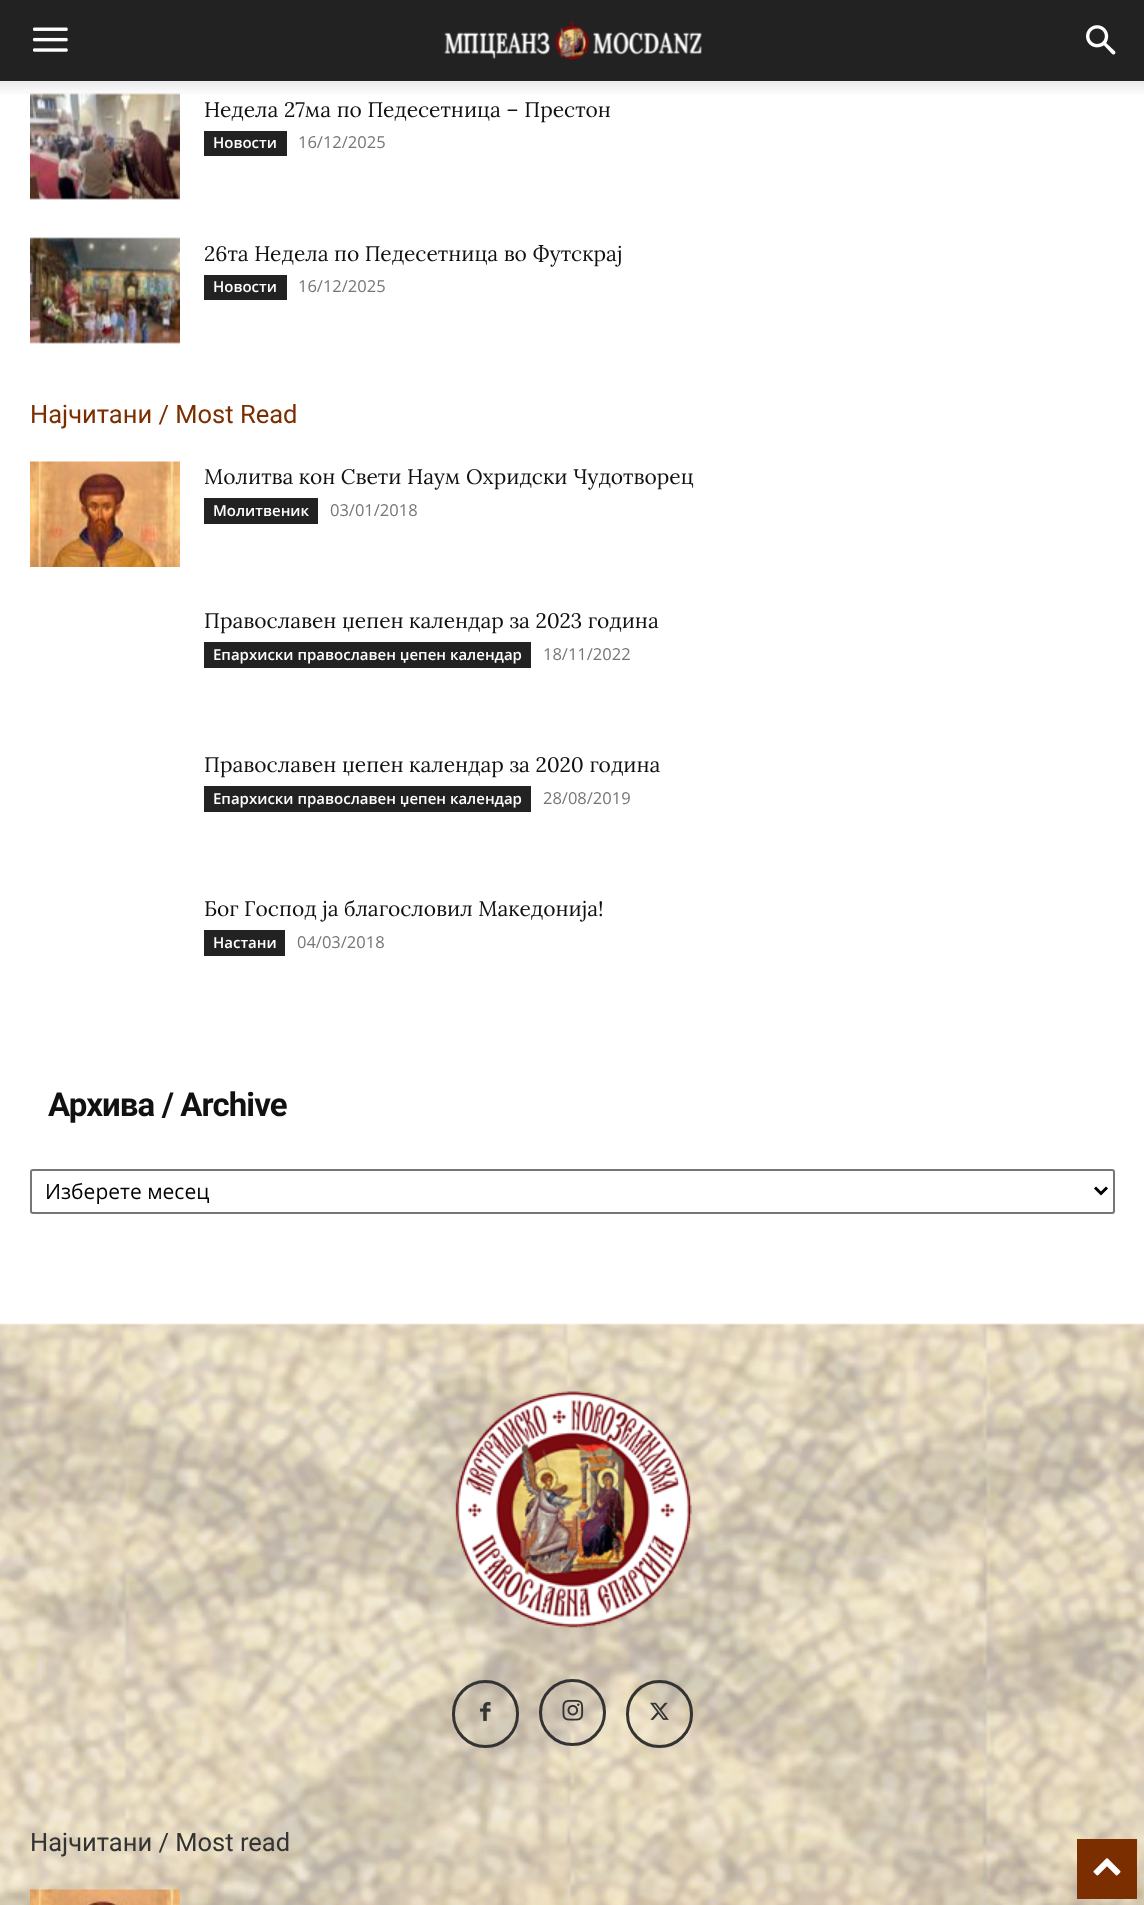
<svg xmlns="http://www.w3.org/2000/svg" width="1144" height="1905">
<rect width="100%" height="100%" fill="#fff"/>
<rect width="1144" height="81" fill="#222"/>
<image x="33" y="27" width="35" height="25" href="media/1.png"/>
<image x="444" y="20" width="258" height="40" href="media/2.png"/>
<image x="1086" y="25" width="30" height="30" href="media/3.png"/>
<image x="30" y="93" width="150" height="107" href="media/5.png"/>
<image x="0" y="81" width="1144" height="13" href="media/4.png"/>
<text x="204" y="117" style="font-family:Lora;font-size:21px;fill:#111">Недела 27ма по Педесетница – Престон</text>
<rect x="204" y="131" width="83" height="25" fill="#222"/>
<text x="213" y="148" style="font-family:Open Sans;font-size:15px;font-weight:600;fill:#fff">Новости</text>
<text x="298" y="148" style="font-family:Open Sans;font-size:16.5px;fill:#767676">16/12/2025</text>
<image x="30" y="237" width="150" height="107" href="media/6.png"/>
<text x="204" y="261" style="font-family:Lora;font-size:21px;fill:#111">26та Недела по Педесетница во Футскрај</text>
<rect x="204" y="275" width="83" height="25" fill="#222"/>
<text x="213" y="292" style="font-family:Open Sans;font-size:15px;font-weight:600;fill:#fff">Новости</text>
<text x="298" y="292" style="font-family:Open Sans;font-size:16.5px;fill:#767676">16/12/2025</text>
<text x="30" y="423" style="font-family:Roboto;font-size:25.5px;fill:#7b2e00">Најчитани / Most Read</text>
<image x="30" y="461" width="150" height="106" href="media/7.png"/>
<text x="204" y="484" style="font-family:Lora;font-size:21px;fill:#111">Молитва кон Свети Наум Охридски Чудотворец</text>
<rect x="204" y="498" width="114" height="26" fill="#222"/>
<text x="213" y="516" style="font-family:Open Sans;font-size:15px;font-weight:600;fill:#fff">Молитвеник</text>
<text x="330" y="516" style="font-family:Open Sans;font-size:16.5px;fill:#767676">03/01/2018</text>
<text x="204" y="628" style="font-family:Lora;font-size:21px;fill:#111">Православен џепен календар за 2023 година</text>
<rect x="204" y="642" width="327" height="26" fill="#222"/>
<text x="213" y="660" style="font-family:Open Sans;font-size:15px;font-weight:600;fill:#fff">Eпархиски православен џепен календар</text>
<text x="543" y="660" style="font-family:Open Sans;font-size:16.5px;fill:#767676">18/11/2022</text>
<text x="204" y="772" style="font-family:Lora;font-size:21px;fill:#111">Православен џепен календар за 2020 година</text>
<rect x="204" y="786" width="327" height="26" fill="#222"/>
<text x="213" y="804" style="font-family:Open Sans;font-size:15px;font-weight:600;fill:#fff">Eпархиски православен џепен календар</text>
<text x="543" y="804" style="font-family:Open Sans;font-size:16.5px;fill:#767676">28/08/2019</text>
<text x="204" y="916" style="font-family:Lora;font-size:21px;fill:#111">Бог Господ ја благословил Македонија!</text>
<rect x="204" y="930" width="81" height="26" fill="#222"/>
<text x="213" y="948" style="font-family:Open Sans;font-size:15px;font-weight:600;fill:#fff">Настани</text>
<text x="297" y="948" style="font-family:Open Sans;font-size:16.5px;fill:#767676">04/03/2018</text>
<text x="48" y="1116" style="font-family:Roboto;font-size:33px;font-weight:bold;letter-spacing:-0.9px;fill:#111">Архива / Archive</text>
<rect x="31" y="1170" width="1083" height="43" rx="2" fill="none" stroke="#767676" stroke-width="2"/>
<path d="M1095 1187.5l6 6l6-6" fill="none" stroke="#000" stroke-width="3"/>
<text x="45" y="1199" style="font-family:Open Sans;font-size:21px;fill:#000">Изберете месец</text>
<rect y="1325" width="1144" height="580" fill="#f9f9f9"/>
<image x="0" y="1323" width="1144" height="582" href="media/8.png"/>
<image x="455" y="1391" width="237" height="237" href="media/9.png"/>
<image x="480" y="1702" width="11" height="19" href="media/10.png"/>
<rect x="453.5" y="1681.5" width="64" height="65" rx="32" fill="none" stroke="#333" stroke-width="3"/>
<image x="562" y="1699" width="22" height="22" href="media/11.png"/>
<circle cx="572.5" cy="1712.5" r="32" fill="none" stroke="#333" stroke-width="3"/>
<image x="650" y="1702" width="19" height="18" href="media/12.png"/>
<rect x="627.5" y="1681.5" width="64" height="65" rx="32" fill="none" stroke="#333" stroke-width="3"/>
<text x="30" y="1851" style="font-family:Roboto;font-size:25.5px;fill:#333">Најчитани / Most read</text>
<image x="30" y="1889" width="150" height="16" href="media/13.png"/>
<rect x="1077" y="1839" width="60" height="60" fill="#7b2e00"/>
<image x="1093" y="1858" width="28" height="18" href="media/14.png"/>
</svg>
